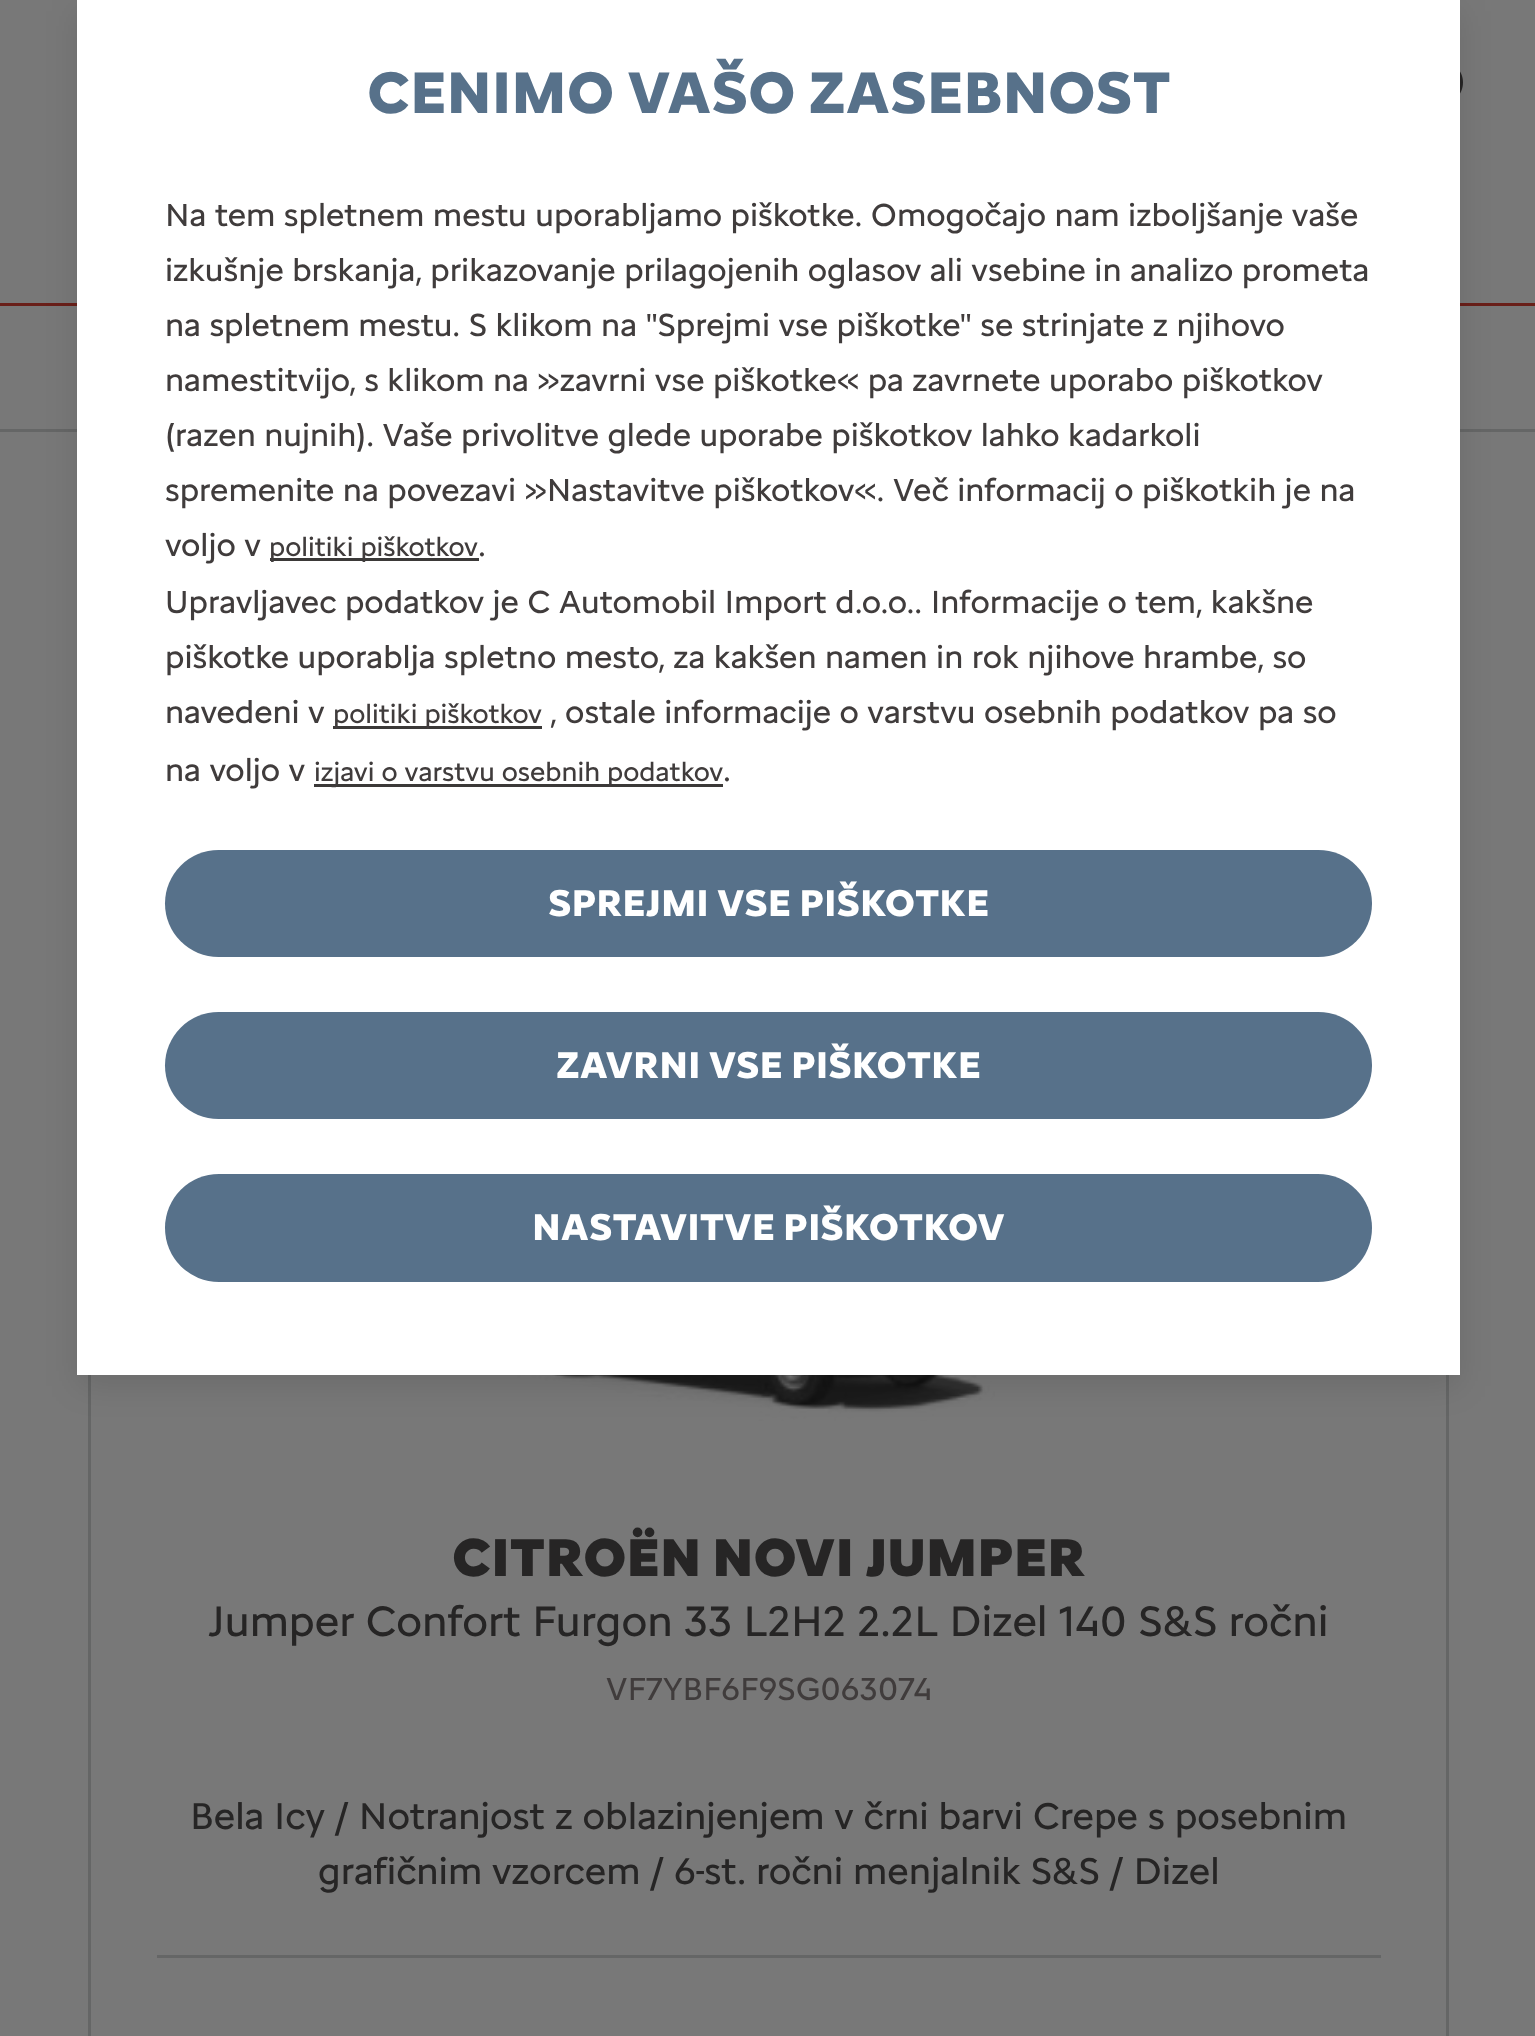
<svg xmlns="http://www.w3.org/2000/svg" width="1535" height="2036">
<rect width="100%" height="100%" fill="#787878"/>
<rect y="303" width="1535" height="3" fill="#691f19"/>
<image x="1460" y="71" width="3" height="23" href="media/1.png"/>
<rect y="429" width="1535" height="3" fill="#656666"/>
<rect x="89.5" y="997.5" width="1358" height="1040" fill="none" stroke="#656666" stroke-width="3"/>
<image x="499" y="1375" width="496" height="46" href="media/2.png"/>
<rect x="77" y="11" width="1383" height="1375" fill="#0000001a" filter="blur(16.5px)"/>
<rect x="77" width="1383" height="1375" fill="#fff"/>
<text x="367" y="113" style="font-family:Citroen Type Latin;font-size:60.5px;font-weight:bold;fill:#57718a">CENIMO VAŠO ZASEBNOST</text>
<text x="165" y="226" style="font-family:Citroen Type Latin;font-size:33px;fill:#403c3c">Na tem spletnem mestu uporabljamo piškotke. Omogočajo nam izboljšanje vaše</text>
<text x="165" y="281" style="font-family:Citroen Type Latin;font-size:33px;fill:#403c3c">izkušnje brskanja, prikazovanje prilagojenih oglasov ali vsebine in analizo prometa</text>
<text x="165" y="336" style="font-family:Citroen Type Latin;font-size:33px;fill:#403c3c">na spletnem mestu. S klikom na "Sprejmi vse piškotke" se strinjate z njihovo</text>
<text x="165" y="391" style="font-family:Citroen Type Latin;font-size:33px;fill:#403c3c">namestitvijo, s klikom na »zavrni vse piškotke« pa zavrnete uporabo piškotkov</text>
<text x="165" y="446" style="font-family:Citroen Type Latin;font-size:33px;fill:#403c3c">(razen nujnih). Vaše privolitve glede uporabe piškotkov lahko kadarkoli</text>
<text x="165" y="501" style="font-family:Citroen Type Latin;font-size:33px;fill:#403c3c">spremenite na povezavi »Nastavitve piškotkov«. Več informacij o piškotkih je na</text>
<text x="165" y="556" style="font-family:Citroen Type Latin;font-size:33px;fill:#403c3c">voljo v</text>
<rect x="270" y="558" width="209" height="3" fill="#3b3938"/>
<text x="269" y="556" style="font-family:Citroen Type Latin;font-size:27.5px;fill:#403c3c">politiki piškotkov</text>
<text x="478" y="556" style="font-family:Citroen Type Latin;font-size:33px;fill:#403c3c">.</text>
<text x="165" y="613" style="font-family:Citroen Type Latin;font-size:33px;fill:#403c3c">Upravljavec podatkov je C Automobil Import d.o.o.. Informacije o tem, kakšne</text>
<text x="165" y="668" style="font-family:Citroen Type Latin;font-size:33px;fill:#403c3c">piškotke uporablja spletno mesto, za kakšen namen in rok njihove hrambe, so</text>
<text x="165" y="723" style="font-family:Citroen Type Latin;font-size:33px;fill:#403c3c">navedeni v</text>
<rect x="333" y="726" width="209" height="3" fill="#3b3938"/>
<text x="333" y="723" style="font-family:Citroen Type Latin;font-size:27.5px;fill:#403c3c">politiki piškotkov</text>
<text x="550" y="723" style="font-family:Citroen Type Latin;font-size:33px;fill:#403c3c">, ostale informacije o varstvu osebnih podatkov pa so</text>
<text x="165" y="781" style="font-family:Citroen Type Latin;font-size:33px;fill:#403c3c">na voljo v</text>
<rect x="314" y="784" width="409" height="3" fill="#3b3938"/>
<text x="314" y="781" style="font-family:Citroen Type Latin;font-size:27.5px;fill:#403c3c">izjavi o varstvu osebnih podatkov</text>
<text x="723" y="781" style="font-family:Citroen Type Latin;font-size:33px;fill:#403c3c">.</text>
<rect x="165" y="850" width="1207" height="107" rx="53.5" fill="#57718a"/>
<text x="548" y="916" style="font-family:Citroen Type Latin;font-size:38.5px;font-weight:bold;fill:#fff">SPREJMI VSE PIŠKOTKE</text>
<rect x="165" y="1012" width="1207" height="107" rx="53.5" fill="#57718a"/>
<text x="556" y="1078" style="font-family:Citroen Type Latin;font-size:38.5px;font-weight:bold;fill:#fff">ZAVRNI VSE PIŠKOTKE</text>
<rect x="165" y="1174" width="1207" height="108" rx="54" fill="#57718a"/>
<text x="532" y="1240" style="font-family:Citroen Type Latin;font-size:38.5px;font-weight:bold;fill:#fff">NASTAVITVE PIŠKOTKOV</text>
<text x="452" y="1576" style="font-family:Citroen Type Latin;font-size:55px;font-weight:900;fill:#262525">CITROËN NOVI JUMPER</text>
<text x="208" y="1636" style="font-family:Citroen Type Latin;font-size:44px;fill:#262525">Jumper Confort Furgon 33 L2H2 2.2L Dizel 140 S&amp;S ročni</text>
<text x="606" y="1700" style="font-family:Citroen Type Latin;font-size:33px;fill:#403c3c">VF7YBF6F9SG063074</text>
<text x="190" y="1829" style="font-family:Citroen Type Latin;font-size:38.5px;fill:#262525">Bela Icy / Notranjost z oblazinjenjem v črni barvi Crepe s posebnim</text>
<text x="318" y="1884" style="font-family:Citroen Type Latin;font-size:38.5px;fill:#262525">grafičnim vzorcem / 6-st. ročni menjalnik S&amp;S / Dizel</text>
<rect x="157" y="1955" width="1224" height="3" fill="#656666"/>
</svg>
